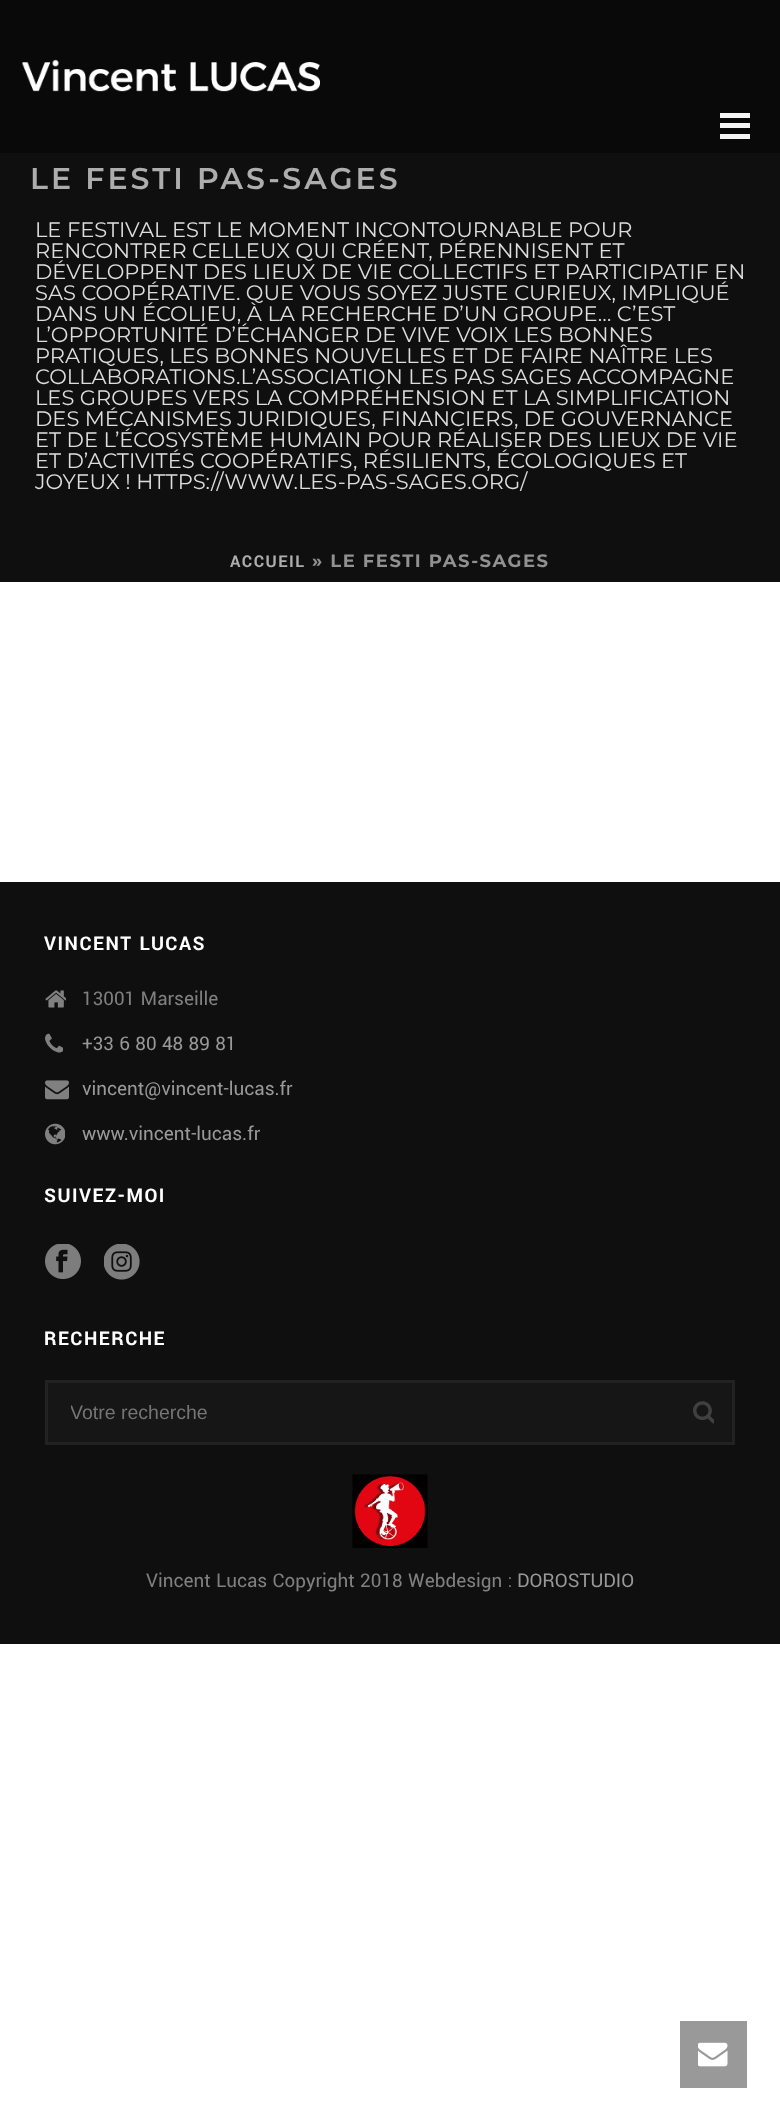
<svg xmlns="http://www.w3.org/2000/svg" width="780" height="2110">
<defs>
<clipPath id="clip1"><rect x="71" y="1401" width="619" height="23"/></clipPath>
</defs>
<rect width="100%" height="100%" fill="#fff"/>
<rect width="780" height="153" fill="#090909"/>
<image x="22" y="59" width="298" height="33" href="media/1.png"/>
<rect x="720" y="123" width="30" height="5" fill="#f5f5f5"/>
<rect x="720" y="113" width="30" height="5" fill="#f5f5f5"/>
<rect x="720" y="134" width="30" height="5" fill="#f5f5f5"/>
<rect y="153" width="780" height="429" fill="#0f0f0f"/>
<text x="30" y="189" style="font-family:Montserrat;font-size:30px;font-weight:600;letter-spacing:3px;fill:#adadad">LE FESTI PAS-SAGES</text>
<text x="35" y="237" style="font-family:Montserrat;font-size:21px;fill:#ddd">LE FESTIVAL EST LE MOMENT INCONTOURNABLE POUR</text>
<text x="35" y="258" style="font-family:Montserrat;font-size:21px;fill:#ddd">RENCONTRER CELLEUX QUI CRÉENT, PÉRENNISENT ET</text>
<text x="35" y="279" style="font-family:Montserrat;font-size:21px;fill:#ddd">DÉVELOPPENT DES LIEUX DE VIE COLLECTIFS ET PARTICIPATIF EN</text>
<text x="35" y="300" style="font-family:Montserrat;font-size:21px;fill:#ddd">SAS COOPÉRATIVE. QUE VOUS SOYEZ JUSTE CURIEUX, IMPLIQUÉ</text>
<text x="35" y="321" style="font-family:Montserrat;font-size:21px;fill:#ddd">DANS UN ÉCOLIEU, À LA RECHERCHE D’UN GROUPE… C’EST</text>
<text x="35" y="342" style="font-family:Montserrat;font-size:21px;fill:#ddd">L’OPPORTUNITÉ D’ÉCHANGER DE VIVE VOIX LES BONNES</text>
<text x="35" y="363" style="font-family:Montserrat;font-size:21px;fill:#ddd">PRATIQUES, LES BONNES NOUVELLES ET DE FAIRE NAÎTRE LES</text>
<text x="35" y="384" style="font-family:Montserrat;font-size:21px;fill:#ddd">COLLABORATIONS.L’ASSOCIATION LES PAS SAGES ACCOMPAGNE</text>
<text x="35" y="405" style="font-family:Montserrat;font-size:21px;fill:#ddd">LES GROUPES VERS LA COMPRÉHENSION ET LA SIMPLIFICATION</text>
<text x="35" y="426" style="font-family:Montserrat;font-size:21px;fill:#ddd">DES MÉCANISMES JURIDIQUES, FINANCIERS, DE GOUVERNANCE</text>
<text x="35" y="447" style="font-family:Montserrat;font-size:21px;fill:#ddd">ET DE L’ÉCOSYSTÈME HUMAIN POUR RÉALISER DES LIEUX DE VIE</text>
<text x="35" y="468" style="font-family:Montserrat;font-size:21px;fill:#ddd">ET D’ACTIVITÉS COOPÉRATIFS, RÉSILIENTS, ÉCOLOGIQUES ET</text>
<text x="35" y="489" style="font-family:Montserrat;font-size:21px;fill:#ddd">JOYEUX ! HTTPS://WWW.LES-PAS-SAGES.ORG/</text>
<text x="230" y="567" style="font-family:Yantramanav;font-size:18px;font-weight:bold;letter-spacing:1.5px;fill:#adadad">ACCUEIL</text>
<text x="312" y="567" style="font-family:Montserrat;font-size:18px;font-weight:bold;letter-spacing:1.5px;fill:#919191">» LE FESTI PAS-SAGES</text>
<rect y="882" width="780" height="762" fill="#0f0f0f"/>
<text x="44" y="950" style="font-family:Yantramanav;font-size:21px;font-weight:bold;letter-spacing:1.5px;fill:#fff">VINCENT LUCAS</text>
<image x="45" y="990" width="21" height="18" href="media/2.png"/>
<text x="82" y="1005" style="font-family:Yantramanav;font-size:21px;fill:#808080">13001 Marseille</text>
<image x="45" y="1033" width="18" height="20" href="media/3.png"/>
<text x="82" y="1050" style="font-family:Yantramanav;font-size:21px;fill:#999">+33 6 80 48 89 81</text>
<image x="45" y="1080" width="24" height="20" href="media/4.png"/>
<text x="82" y="1095" style="font-family:Yantramanav;font-size:21px;fill:#999">vincent@vincent-lucas.fr</text>
<image x="45" y="1123" width="20" height="22" href="media/5.png"/>
<text x="82" y="1140" style="font-family:Yantramanav;font-size:21px;fill:#999">www.vincent-lucas.fr</text>
<text x="44" y="1202" style="font-family:Yantramanav;font-size:21px;font-weight:bold;letter-spacing:1.5px;fill:#fff">SUIVEZ-MOI</text>
<image x="45" y="1244" width="36" height="35" href="media/6.png"/>
<image x="104" y="1244" width="36" height="36" href="media/7.png"/>
<text x="44" y="1345" style="font-family:Yantramanav;font-size:21px;font-weight:bold;letter-spacing:1.5px;fill:#fff">RECHERCHE</text>
<rect x="46.5" y="1381.5" width="687" height="62" fill="#161616" stroke="#222" stroke-width="3"/>
<g clip-path="url(#clip1)">
<text x="70" y="1419" style="font-family:Liberation Sans;font-size:19.5px;fill:#757575">Votre recherche</text>
</g>
<image x="693" y="1401" width="21" height="23" href="media/8.png"/>
<image x="352" y="1474" width="76" height="74" href="media/9.png"/>
<text x="146" y="1587" style="font-family:Yantramanav;font-size:21px;fill:#808080">Vincent Lucas Copyright 2018 Webdesign :</text>
<text x="517" y="1587" style="font-family:Yantramanav;font-size:21px;fill:#999">DOROSTUDIO</text>
<rect x="680" y="2021" width="67" height="67" fill="#999"/>
<image x="698" y="2042" width="30" height="25" href="media/10.png"/>
</svg>
